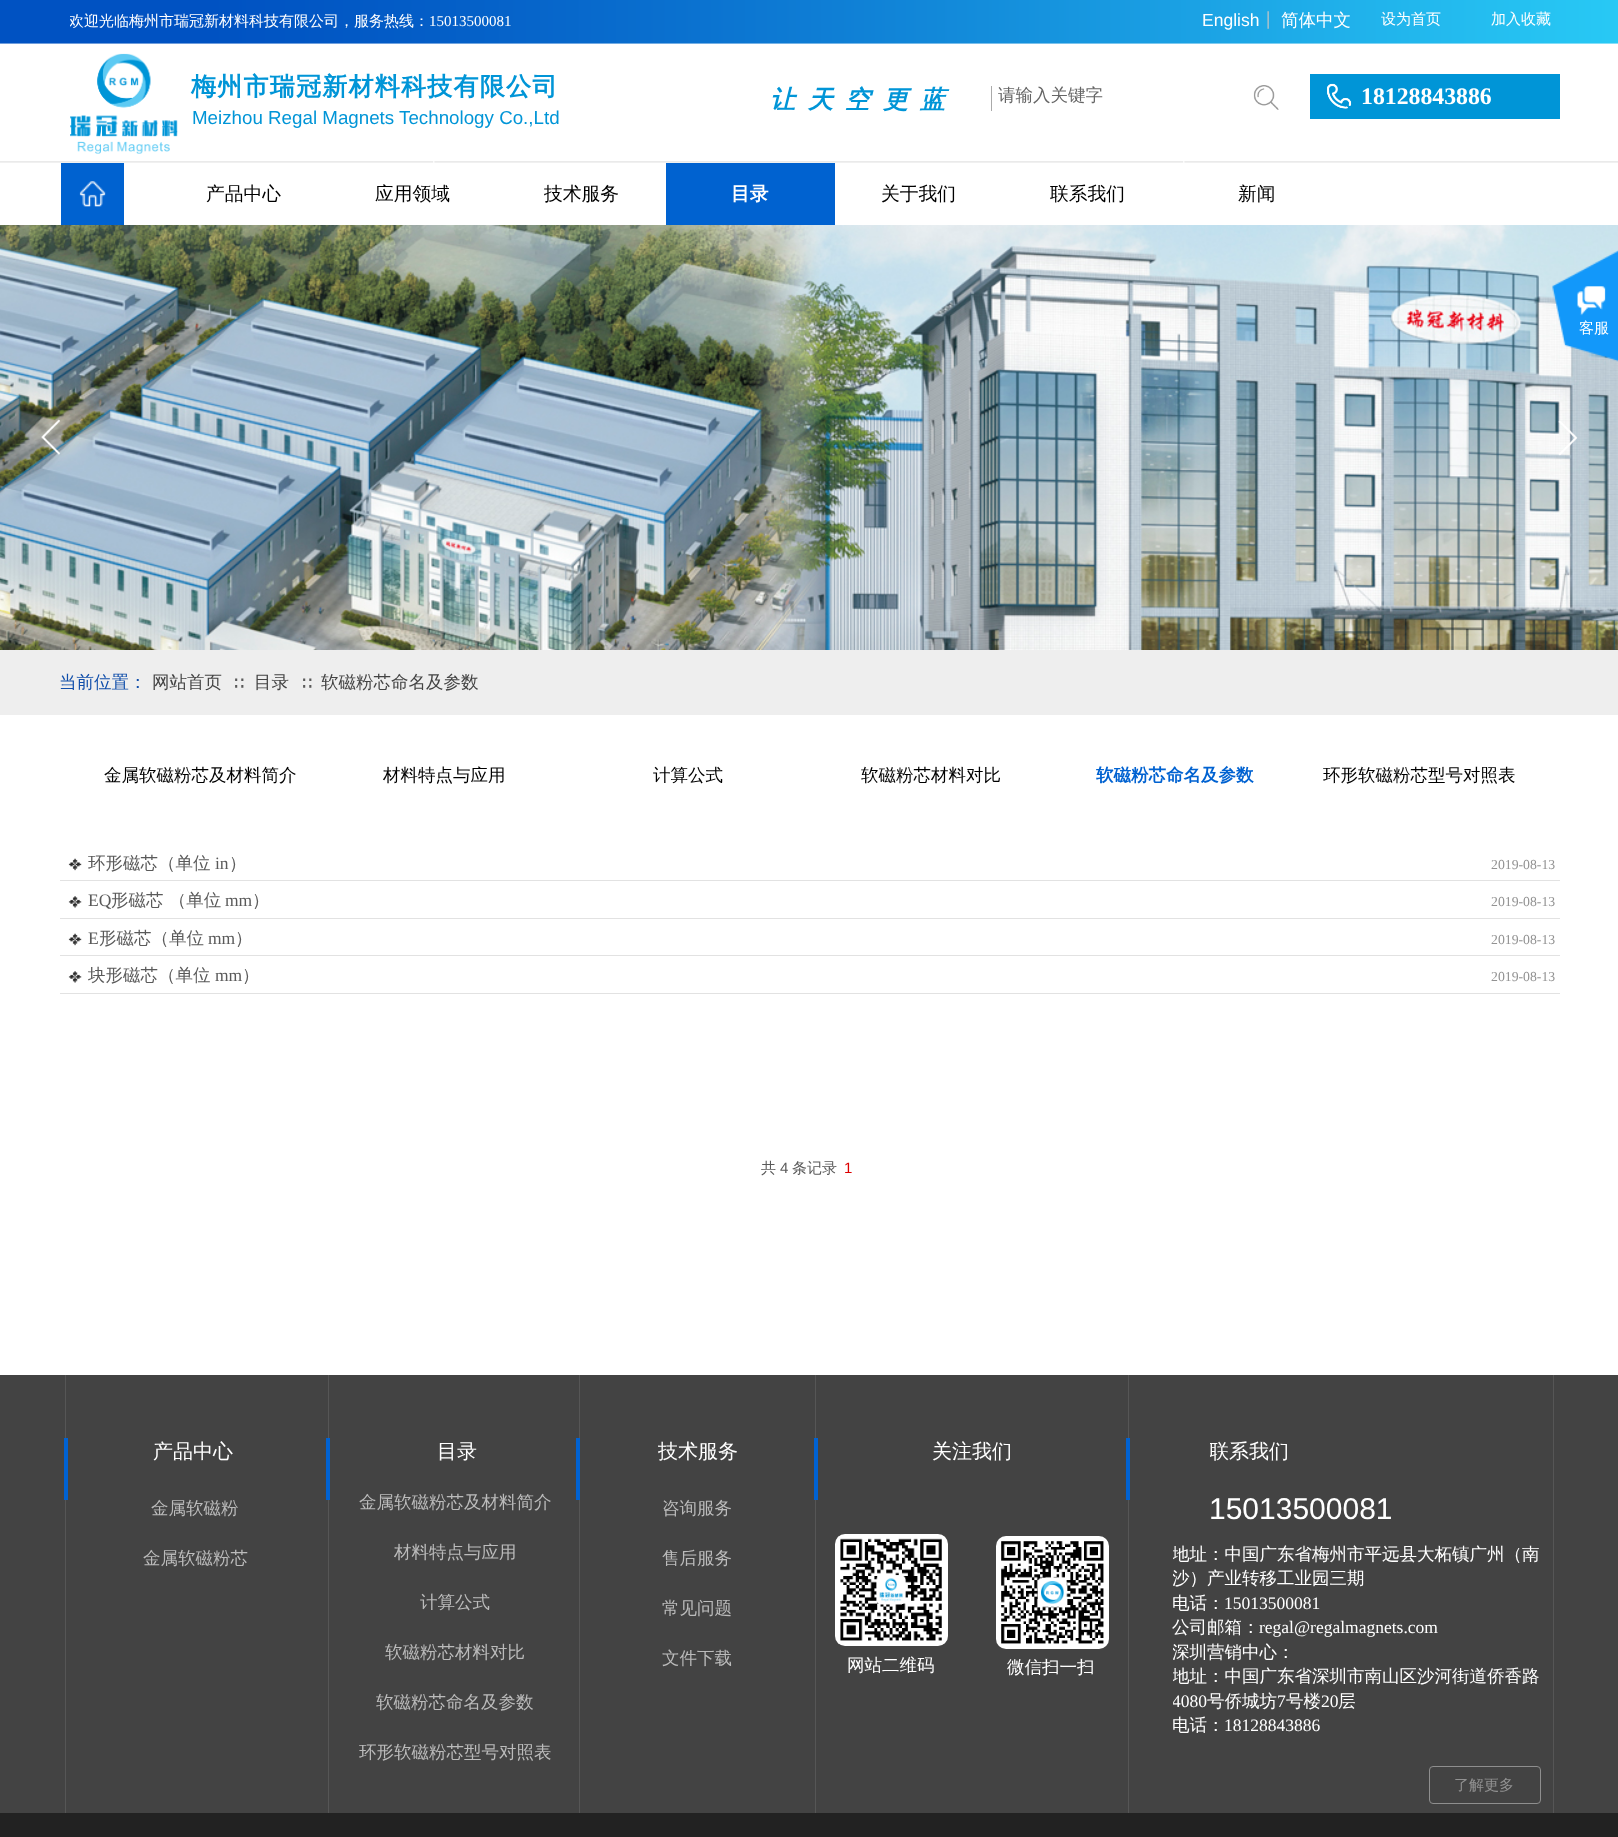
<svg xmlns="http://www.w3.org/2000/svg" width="1618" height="1837">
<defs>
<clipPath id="clip1"><rect x="70" y="11" width="858" height="23"/></clipPath>
<clipPath id="clip2"><rect x="1210" y="1438" width="100" height="31"/></clipPath>
<clipPath id="clip3"><rect x="1173" y="1543" width="387" height="212"/></clipPath>
</defs>
<rect width="100%" height="100%" fill="#fff"/>
<image x="0" y="0" width="1618" height="44" href="media/1.png"/>
<g clip-path="url(#clip1)">
<text x="69" y="26" style="font-family:WenQuanYi Zen Hei;font-size:15px;font-weight:500;fill:#fff">欢迎光临</text>
</g>
<text x="129" y="26" style="font-family:WenQuanYi Zen Hei;font-size:15px;font-weight:500;fill:#fff">梅州市瑞冠新材料科技有限公司，服务热线：</text>
<text x="429" y="26" style="font-family:Liberation Serif;font-size:15px;fill:#fff">15013500081</text>
<image x="1267" y="11" width="2" height="18" href="media/2.png"/>
<text x="1202" y="26" style="font-family:Liberation Sans;font-size:17.5px;fill:#fff">English</text>
<text x="1281" y="26" style="font-family:WenQuanYi Zen Hei;font-size:17.5px;font-weight:500;fill:#fff">简体中文</text>
<text x="1381" y="24" style="font-family:WenQuanYi Zen Hei;font-size:15px;font-weight:500;fill:#fff">设为首页</text>
<text x="1491" y="24" style="font-family:WenQuanYi Zen Hei;font-size:15px;font-weight:500;fill:#fff">加入收藏</text>
<image x="0" y="43" width="1618" height="120" href="media/3.png"/>
<image x="70" y="53" width="108" height="101" href="media/4.png"/>
<text x="191" y="95" style="font-family:WenQuanYi Zen Hei;font-size:25px;font-weight:bold;letter-spacing:1.25px;fill:#0095d7">梅州市瑞冠新材料科技有限公司</text>
<text x="770" y="108" style="font-family:WenQuanYi Zen Hei;font-size:25px;font-weight:bold;font-style:italic;fill:#0095d7">让</text>
<text x="808" y="108" style="font-family:WenQuanYi Zen Hei;font-size:25px;font-weight:bold;font-style:italic;fill:#0095d7">天</text>
<text x="845" y="108" style="font-family:WenQuanYi Zen Hei;font-size:25px;font-weight:bold;font-style:italic;fill:#0095d7">空</text>
<text x="883" y="108" style="font-family:WenQuanYi Zen Hei;font-size:25px;font-weight:bold;font-style:italic;fill:#0095d7">更</text>
<text x="920" y="108" style="font-family:WenQuanYi Zen Hei;font-size:25px;font-weight:bold;font-style:italic;fill:#0095d7">蓝</text>
<rect x="991" y="86" width="1" height="25" fill="#aaa"/>
<text x="998" y="101" style="font-family:WenQuanYi Zen Hei;font-size:17.5px;font-weight:500;fill:#666">请输入关键字</text>
<image x="1253" y="85" width="26" height="25" href="media/5.png"/>
<rect x="1310" y="74" width="250" height="45" fill="#0095d7"/>
<image x="1327" y="83" width="25" height="26" href="media/6.png"/>
<text x="1361" y="104" style="font-family:Liberation Serif;font-size:23.75px;font-weight:bold;fill:#fff">18128843886</text>
<text x="192" y="124" style="font-family:Liberation Sans;font-size:18.75px;fill:#0095d7">Meizhou Regal Magnets Technology Co.,Ltd</text>
<rect x="61" y="163" width="63" height="62" fill="#0062d0"/>
<image x="79" y="181" width="27" height="26" href="media/7.png"/>
<text x="206" y="200" style="font-family:WenQuanYi Zen Hei;font-size:18.75px;font-weight:500;fill:#000">产品中心</text>
<text x="375" y="200" style="font-family:WenQuanYi Zen Hei;font-size:18.75px;font-weight:500;fill:#000">应用领域</text>
<text x="544" y="200" style="font-family:WenQuanYi Zen Hei;font-size:18.75px;font-weight:500;fill:#000">技术服务</text>
<rect x="666" y="163" width="169" height="62" fill="#0062d0"/>
<text x="731" y="200" style="font-family:WenQuanYi Zen Hei;font-size:18.75px;font-weight:bold;fill:#fff">目录</text>
<text x="881" y="200" style="font-family:WenQuanYi Zen Hei;font-size:18.75px;font-weight:500;fill:#000">关于我们</text>
<text x="1050" y="200" style="font-family:WenQuanYi Zen Hei;font-size:18.75px;font-weight:500;fill:#000">联系我们</text>
<text x="1238" y="200" style="font-family:WenQuanYi Zen Hei;font-size:18.75px;font-weight:500;fill:#000">新闻</text>
<image x="0" y="225" width="1618" height="425" href="media/8.png"/>
<image x="41" y="419" width="19" height="36" href="media/9.png"/>
<image x="1558" y="420" width="20" height="36" href="media/10.png"/>
<rect y="650" width="1618" height="65" fill="#eee"/>
<text x="59" y="688" style="font-family:WenQuanYi Zen Hei;font-size:17.5px;font-weight:500;fill:#104eaa">当前位置：</text>
<text x="152" y="688" style="font-family:WenQuanYi Zen Hei;font-size:17.5px;font-weight:500;fill:#434343">网站首页</text>
<text x="232" y="688" style="font-family:WenQuanYi Zen Hei;font-size:15px;font-weight:500;fill:#5a5a5a">∷</text>
<text x="254" y="688" style="font-family:WenQuanYi Zen Hei;font-size:17.5px;font-weight:500;fill:#434343">目录</text>
<text x="300" y="688" style="font-family:WenQuanYi Zen Hei;font-size:15px;font-weight:500;fill:#5a5a5a">∷</text>
<text x="321" y="688" style="font-family:WenQuanYi Zen Hei;font-size:17.5px;font-weight:500;fill:#434343">软磁粉芯命名及参数</text>
<text x="104" y="781" style="font-family:WenQuanYi Zen Hei;font-size:17.5px;font-weight:500;fill:#000">金属软磁粉芯及材料简介</text>
<text x="383" y="781" style="font-family:WenQuanYi Zen Hei;font-size:17.5px;font-weight:500;fill:#000">材料特点与应用</text>
<text x="653" y="781" style="font-family:WenQuanYi Zen Hei;font-size:17.5px;font-weight:500;fill:#000">计算公式</text>
<text x="861" y="781" style="font-family:WenQuanYi Zen Hei;font-size:17.5px;font-weight:500;fill:#000">软磁粉芯材料对比</text>
<text x="1096" y="781" style="font-family:WenQuanYi Zen Hei;font-size:17.5px;font-weight:bold;fill:#0062d1">软磁粉芯命名及参数</text>
<text x="1323" y="781" style="font-family:WenQuanYi Zen Hei;font-size:17.5px;font-weight:500;fill:#000">环形软磁粉芯型号对照表</text>
<image x="68" y="858" width="14" height="13" href="media/11.png"/>
<text x="88" y="869" style="font-family:WenQuanYi Zen Hei;font-size:17.5px;font-weight:500;fill:#5a5a5a">环形磁芯（单位</text>
<text x="215" y="869" style="font-family:Liberation Serif;font-size:17.5px;fill:#5a5a5a">in</text>
<text x="229" y="869" style="font-family:WenQuanYi Zen Hei;font-size:17.5px;font-weight:500;fill:#5a5a5a">）</text>
<text x="1491" y="869" style="font-family:Liberation Serif;font-size:13.75px;fill:#929292">2019-08-13</text>
<rect x="60" y="880" width="1500" height="1" fill="#e2e2e2"/>
<image x="68" y="896" width="14" height="12" href="media/12.png"/>
<text x="88" y="906" style="font-family:Liberation Serif;font-size:17.5px;fill:#5a5a5a">EQ</text>
<text x="111" y="906" style="font-family:WenQuanYi Zen Hei;font-size:17.5px;font-weight:500;fill:#5a5a5a">形磁芯 （单位</text>
<text x="225" y="906" style="font-family:Liberation Serif;font-size:17.5px;fill:#5a5a5a">mm</text>
<text x="252" y="906" style="font-family:WenQuanYi Zen Hei;font-size:17.5px;font-weight:500;fill:#5a5a5a">）</text>
<text x="1491" y="906" style="font-family:Liberation Serif;font-size:13.75px;fill:#929292">2019-08-13</text>
<rect x="60" y="918" width="1500" height="1" fill="#e2e2e2"/>
<image x="68" y="933" width="14" height="13" href="media/11.png"/>
<text x="88" y="944" style="font-family:Liberation Serif;font-size:17.5px;fill:#5a5a5a">E</text>
<text x="99" y="944" style="font-family:WenQuanYi Zen Hei;font-size:17.5px;font-weight:500;fill:#5a5a5a">形磁芯（单位</text>
<text x="208" y="944" style="font-family:Liberation Serif;font-size:17.5px;fill:#5a5a5a">mm</text>
<text x="235" y="944" style="font-family:WenQuanYi Zen Hei;font-size:17.5px;font-weight:500;fill:#5a5a5a">）</text>
<text x="1491" y="944" style="font-family:Liberation Serif;font-size:13.75px;fill:#929292">2019-08-13</text>
<rect x="60" y="955" width="1500" height="1" fill="#e2e2e2"/>
<image x="68" y="971" width="14" height="12" href="media/12.png"/>
<text x="88" y="981" style="font-family:WenQuanYi Zen Hei;font-size:17.5px;font-weight:500;fill:#5a5a5a">块形磁芯（单位</text>
<text x="215" y="981" style="font-family:Liberation Serif;font-size:17.5px;fill:#5a5a5a">mm</text>
<text x="242" y="981" style="font-family:WenQuanYi Zen Hei;font-size:17.5px;font-weight:500;fill:#5a5a5a">）</text>
<text x="1491" y="981" style="font-family:Liberation Serif;font-size:13.75px;fill:#929292">2019-08-13</text>
<rect x="60" y="993" width="1500" height="1" fill="#e2e2e2"/>
<text x="761" y="1173" style="font-family:WenQuanYi Zen Hei;font-size:15px;font-weight:500;fill:#5a5a5a">共</text>
<text x="780" y="1173" style="font-family:Liberation Sans;font-size:15px;fill:#5a5a5a">4</text>
<text x="792" y="1173" style="font-family:WenQuanYi Zen Hei;font-size:15px;font-weight:500;fill:#5a5a5a">条记录</text>
<text x="844" y="1173" style="font-family:Liberation Sans;font-size:15px;fill:#d00">1</text>
<rect y="1375" width="1618" height="438" fill="#434343"/>
<rect x="65" y="1375" width="1" height="438" fill="#565656"/>
<rect x="328" y="1375" width="1" height="438" fill="#565656"/>
<rect x="579" y="1375" width="1" height="438" fill="#565656"/>
<rect x="815" y="1375" width="1" height="438" fill="#565656"/>
<rect x="1128" y="1375" width="1" height="438" fill="#565656"/>
<rect x="1553" y="1375" width="1" height="438" fill="#565656"/>
<rect x="64" y="1438" width="4" height="62" fill="#0062d2"/>
<text x="153" y="1458" style="font-family:WenQuanYi Zen Hei;font-size:20px;font-weight:500;fill:#fff">产品中心</text>
<rect x="326" y="1438" width="4" height="62" fill="#0062d2"/>
<text x="437" y="1458" style="font-family:WenQuanYi Zen Hei;font-size:20px;font-weight:500;fill:#fff">目录</text>
<rect x="576" y="1438" width="4" height="62" fill="#0062d2"/>
<text x="658" y="1458" style="font-family:WenQuanYi Zen Hei;font-size:20px;font-weight:500;fill:#fff">技术服务</text>
<rect x="814" y="1438" width="4" height="62" fill="#0062d2"/>
<text x="932" y="1458" style="font-family:WenQuanYi Zen Hei;font-size:20px;font-weight:500;fill:#fff">关注我们</text>
<rect x="1126" y="1438" width="4" height="62" fill="#0062d2"/>
<g clip-path="url(#clip2)">
<text x="1209" y="1458" style="font-family:WenQuanYi Zen Hei;font-size:20px;font-weight:500;fill:#fff">联系我们</text>
</g>
<text x="151" y="1514" style="font-family:WenQuanYi Zen Hei;font-size:17.5px;font-weight:500;fill:#bbb">金属软磁粉</text>
<text x="143" y="1564" style="font-family:WenQuanYi Zen Hei;font-size:17.5px;font-weight:500;fill:#bbb">金属软磁粉芯</text>
<text x="359" y="1508" style="font-family:WenQuanYi Zen Hei;font-size:17.5px;font-weight:500;fill:#bbb">金属软磁粉芯及材料简介</text>
<text x="394" y="1558" style="font-family:WenQuanYi Zen Hei;font-size:17.5px;font-weight:500;fill:#bbb">材料特点与应用</text>
<text x="420" y="1608" style="font-family:WenQuanYi Zen Hei;font-size:17.5px;font-weight:500;fill:#bbb">计算公式</text>
<text x="385" y="1658" style="font-family:WenQuanYi Zen Hei;font-size:17.5px;font-weight:500;fill:#bbb">软磁粉芯材料对比</text>
<text x="376" y="1708" style="font-family:WenQuanYi Zen Hei;font-size:17.5px;font-weight:500;fill:#bbb">软磁粉芯命名及参数</text>
<text x="359" y="1758" style="font-family:WenQuanYi Zen Hei;font-size:17.5px;font-weight:500;fill:#bbb">环形软磁粉芯型号对照表</text>
<text x="662" y="1514" style="font-family:WenQuanYi Zen Hei;font-size:17.5px;font-weight:500;fill:#bbb">咨询服务</text>
<text x="662" y="1564" style="font-family:WenQuanYi Zen Hei;font-size:17.5px;font-weight:500;fill:#bbb">售后服务</text>
<text x="662" y="1614" style="font-family:WenQuanYi Zen Hei;font-size:17.5px;font-weight:500;fill:#bbb">常见问题</text>
<text x="662" y="1664" style="font-family:WenQuanYi Zen Hei;font-size:17.5px;font-weight:500;fill:#bbb">文件下载</text>
<rect x="835" y="1534" width="113" height="112" rx="10" fill="#fff"/>
<image x="837" y="1536" width="108" height="108" href="media/13.png"/>
<rect x="996" y="1536" width="113" height="113" rx="10" fill="#fff"/>
<image x="1001" y="1541" width="103" height="103" href="media/14.png"/>
<text x="1209" y="1519" style="font-family:Liberation Sans;font-size:30px;fill:#fff">15013500081</text>
<text x="847" y="1671" style="font-family:WenQuanYi Zen Hei;font-size:17.5px;font-weight:500;fill:#fff">网站二维码</text>
<text x="1007" y="1673" style="font-family:WenQuanYi Zen Hei;font-size:17.5px;font-weight:500;fill:#fff">微信扫一扫</text>
<g clip-path="url(#clip3)">
<text x="1172" y="1560" style="font-family:WenQuanYi Zen Hei;font-size:17.5px;font-weight:500;fill:#fff">地址：中国广东省梅州市平远县大柘镇广州（南</text>
<text x="1172" y="1584" style="font-family:WenQuanYi Zen Hei;font-size:17.5px;font-weight:500;fill:#fff">沙）产业转移工业园三期</text>
</g>
<text x="1172" y="1609" style="font-family:WenQuanYi Zen Hei;font-size:17.5px;font-weight:500;fill:#fff">电话：</text>
<text x="1224" y="1609" style="font-family:Liberation Serif;font-size:17.5px;fill:#fff">15013500081</text>
<text x="1172" y="1633" style="font-family:WenQuanYi Zen Hei;font-size:17.5px;font-weight:500;fill:#fff">公司邮箱：</text>
<text x="1259" y="1633" style="font-family:Liberation Serif;font-size:17.5px;fill:#fff">regal@regalmagnets.com</text>
<g clip-path="url(#clip3)">
<text x="1172" y="1658" style="font-family:WenQuanYi Zen Hei;font-size:17.5px;font-weight:500;fill:#fff">深圳营销中心：</text>
<text x="1172" y="1682" style="font-family:WenQuanYi Zen Hei;font-size:17.5px;font-weight:500;fill:#fff">地址：中国广东省深圳市南山区沙河街道侨香路</text>
<text x="1172" y="1707" style="font-family:Liberation Serif;font-size:17.5px;fill:#fff">4080</text>
</g>
<text x="1207" y="1707" style="font-family:WenQuanYi Zen Hei;font-size:17.5px;font-weight:500;fill:#fff">号侨城坊</text>
<text x="1277" y="1707" style="font-family:Liberation Serif;font-size:17.5px;fill:#fff">7</text>
<text x="1286" y="1707" style="font-family:WenQuanYi Zen Hei;font-size:17.5px;font-weight:500;fill:#fff">号楼</text>
<text x="1321" y="1707" style="font-family:Liberation Serif;font-size:17.5px;fill:#fff">20</text>
<text x="1338" y="1707" style="font-family:WenQuanYi Zen Hei;font-size:17.5px;font-weight:500;fill:#fff">层</text>
<text x="1172" y="1731" style="font-family:WenQuanYi Zen Hei;font-size:17.5px;font-weight:500;fill:#fff">电话：</text>
<text x="1224" y="1731" style="font-family:Liberation Serif;font-size:17.5px;fill:#fff">18128843886</text>
<rect x="1429.5" y="1766.5" width="111" height="37" rx="3.5" fill="none" stroke="#8e8e8e"/>
<text x="1454" y="1790" style="font-family:WenQuanYi Zen Hei;font-size:15px;font-weight:500;fill:#929292">了解更多</text>
<rect y="1813" width="1618" height="24" fill="#222"/>
<image x="1552" y="250" width="66" height="112" href="media/15.png"/>
<text x="1579" y="333" style="font-family:WenQuanYi Zen Hei;font-size:15px;font-weight:500;fill:#fff">客服</text>
</svg>
